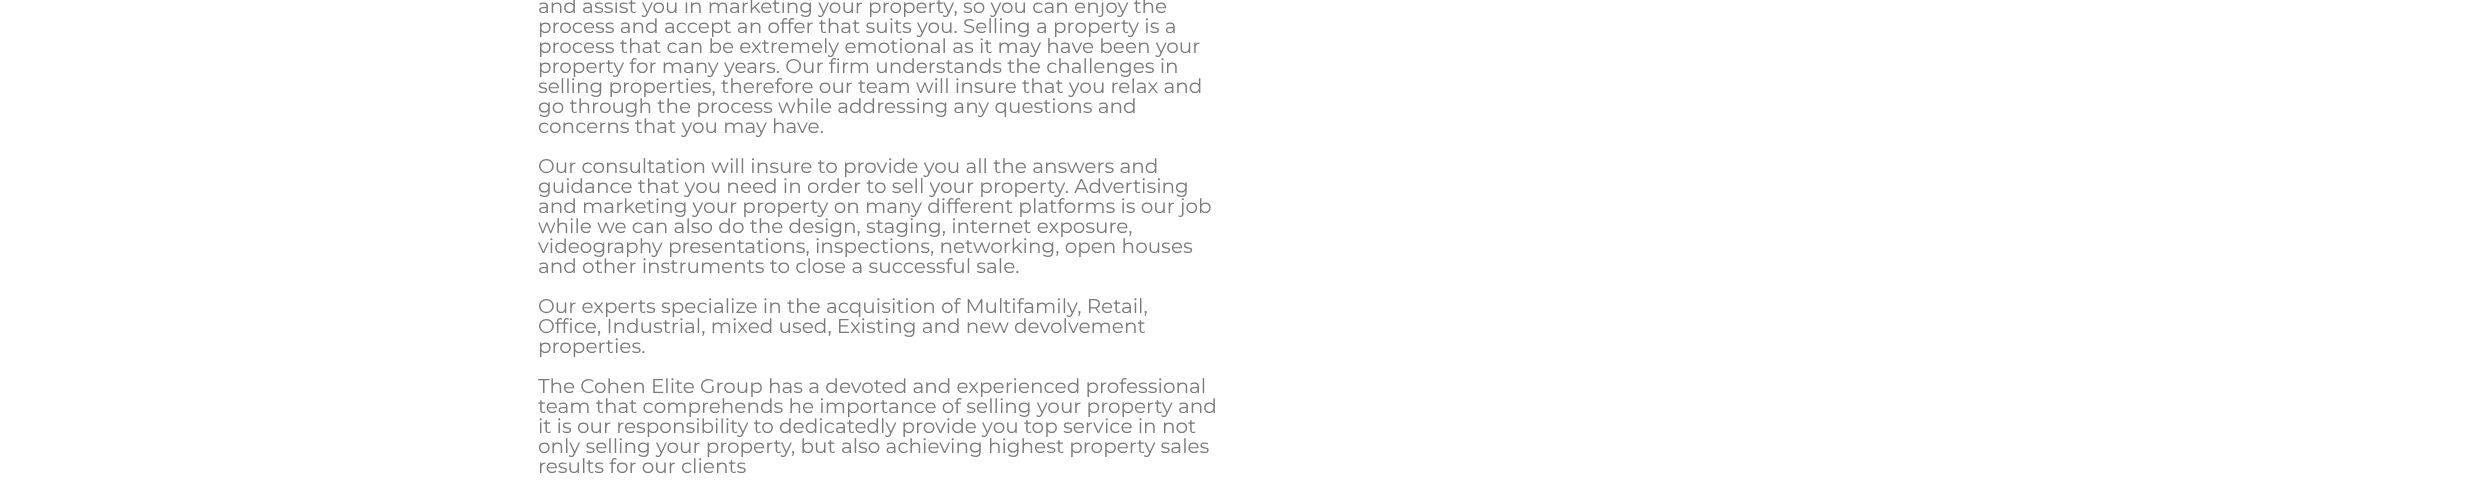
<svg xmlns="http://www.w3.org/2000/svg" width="2475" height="482">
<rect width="100%" height="100%" fill="#fff"/>
<text x="538" y="13" style="font-family:Montserrat;font-size:20px;fill:#7a7a7a">and assist you in marketing your property, so you can enjoy the</text>
<text x="538" y="33" style="font-family:Montserrat;font-size:20px;fill:#7a7a7a">process and accept an offer that suits you. Selling a property is a</text>
<text x="538" y="53" style="font-family:Montserrat;font-size:20px;fill:#7a7a7a">process that can be extremely emotional as it may have been your</text>
<text x="538" y="73" style="font-family:Montserrat;font-size:20px;fill:#7a7a7a">property for many years. Our firm understands the challenges in</text>
<text x="538" y="93" style="font-family:Montserrat;font-size:20px;fill:#7a7a7a">selling properties, therefore our team will insure that you relax and</text>
<text x="538" y="113" style="font-family:Montserrat;font-size:20px;fill:#7a7a7a">go through the process while addressing any questions and</text>
<text x="538" y="133" style="font-family:Montserrat;font-size:20px;fill:#7a7a7a">concerns that you may have.</text>
<text x="538" y="173" style="font-family:Montserrat;font-size:20px;fill:#7a7a7a">Our consultation will insure to provide you all the answers and</text>
<text x="538" y="193" style="font-family:Montserrat;font-size:20px;fill:#7a7a7a">guidance that you need in order to sell your property. Advertising</text>
<text x="538" y="213" style="font-family:Montserrat;font-size:20px;fill:#7a7a7a">and marketing your property on many different platforms is our job</text>
<text x="538" y="233" style="font-family:Montserrat;font-size:20px;fill:#7a7a7a">while we can also do the design, staging, internet exposure,</text>
<text x="538" y="253" style="font-family:Montserrat;font-size:20px;fill:#7a7a7a">videography presentations, inspections, networking, open houses</text>
<text x="538" y="273" style="font-family:Montserrat;font-size:20px;fill:#7a7a7a">and other instruments to close a successful sale.</text>
<text x="538" y="313" style="font-family:Montserrat;font-size:20px;fill:#7a7a7a">Our experts specialize in the acquisition of Multifamily, Retail,</text>
<text x="538" y="333" style="font-family:Montserrat;font-size:20px;fill:#7a7a7a">Office, Industrial, mixed used, Existing and new devolvement</text>
<text x="538" y="353" style="font-family:Montserrat;font-size:20px;fill:#7a7a7a">properties.</text>
<text x="538" y="393" style="font-family:Montserrat;font-size:20px;fill:#7a7a7a">The Cohen Elite Group has a devoted and experienced professional</text>
<text x="538" y="413" style="font-family:Montserrat;font-size:20px;fill:#7a7a7a">team that comprehends he importance of selling your property and</text>
<text x="538" y="433" style="font-family:Montserrat;font-size:20px;fill:#7a7a7a">it is our responsibility to dedicatedly provide you top service in not</text>
<text x="538" y="453" style="font-family:Montserrat;font-size:20px;fill:#7a7a7a">only selling your property, but also achieving highest property sales</text>
<text x="538" y="473" style="font-family:Montserrat;font-size:20px;fill:#7a7a7a">results for our clients</text>
</svg>
